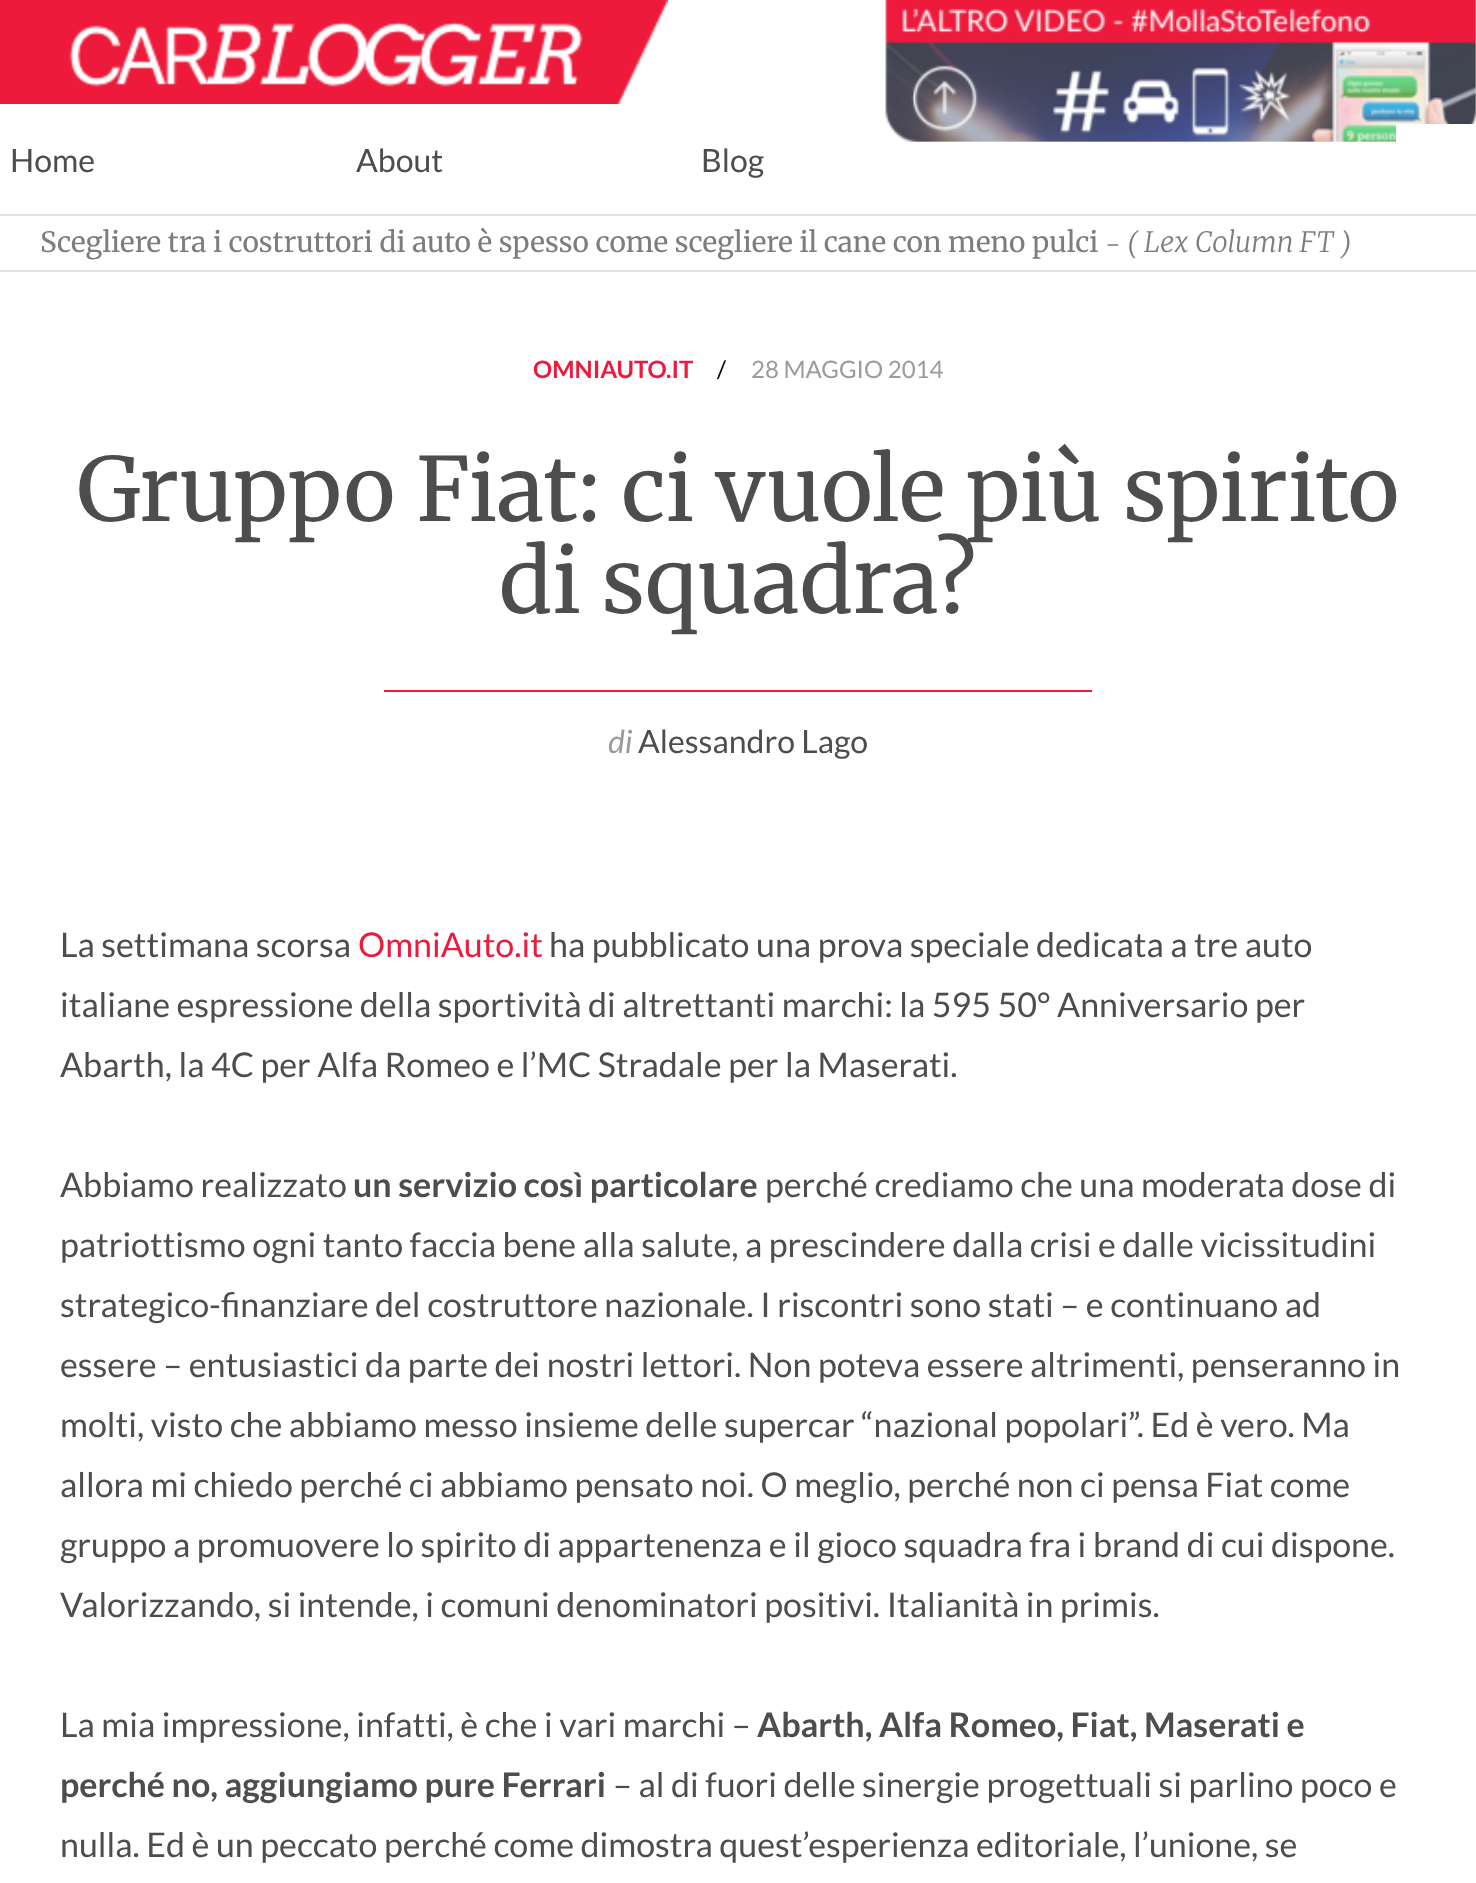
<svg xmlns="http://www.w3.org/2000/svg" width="1476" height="1883">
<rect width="100%" height="100%" fill="#fff"/>
<image x="0" y="0" width="668" height="104" href="media/1.png"/>
<image x="885" y="0" width="591" height="142" href="media/2.png"/>
<rect x="1396" y="124" width="79" height="18" fill="#fff"/>
<text x="10" y="172" style="font-family:Lato;font-size:32px;fill:#4d4d4d">Home</text>
<text x="356" y="172" style="font-family:Lato;font-size:32px;fill:#4d4d4d">About</text>
<text x="701" y="172" style="font-family:Lato;font-size:32px;fill:#4d4d4d">Blog</text>
<rect y="214" width="1476" height="2" fill="#e1e1e1"/>
<rect y="270" width="1476" height="2" fill="#e1e1e1"/>
<text x="40" y="252" style="font-family:Merriweather;font-size:28px;fill:#7d7d7d">Scegliere tra i costruttori di auto è spesso come scegliere il cane con meno pulci</text>
<text x="1105" y="254" style="font-family:Merriweather;font-size:28px;font-weight:300;font-style:italic;fill:#7d7d7d">- (</text>
<text x="1144" y="252" style="font-family:Merriweather;font-size:28px;font-weight:300;font-style:italic;fill:#7d7d7d">Lex Column FT</text>
<text x="1340" y="254" style="font-family:Merriweather;font-size:28px;font-weight:300;font-style:italic;fill:#7d7d7d">)</text>
<text x="533" y="378" style="font-family:Lato;font-size:24px;font-weight:bold;fill:#ed1a3b">OMNIAUTO.IT</text>
<text x="717" y="378" style="font-family:Lato;font-size:24px;fill:#000">/</text>
<text x="751" y="378" style="font-family:Lato;font-size:24px;fill:#9b9b9b">28 MAGGIO 2014</text>
<text x="77" y="521" style="font-family:Merriweather;font-size:88px;fill:#4d4d4d">Gruppo Fiat: ci vuole più spirito</text>
<text x="499" y="613" style="font-family:Merriweather;font-size:88px;fill:#4d4d4d">di squadra?</text>
<rect x="384" y="690" width="708" height="2" fill="#ed1a3b"/>
<text x="608" y="753" style="font-family:Lato;font-size:32px;font-style:italic;fill:#9b9b9b">di</text>
<text x="638" y="753" style="font-family:Lato;font-size:32px;fill:#4d4d4d">Alessandro Lago</text>
<text x="60" y="957" style="font-family:Lato;font-size:34px;fill:#4d4d4d">La settimana scorsa</text>
<text x="358" y="957" style="font-family:Lato;font-size:34px;fill:#ed1a3b">OmniAuto.it</text>
<text x="549" y="957" style="font-family:Lato;font-size:34px;fill:#4d4d4d">ha pubblicato una prova speciale dedicata a tre auto</text>
<text x="60" y="1017" style="font-family:Lato;font-size:34px;fill:#4d4d4d">italiane espressione della sportività di altrettanti marchi: la 595 50° Anniversario per</text>
<text x="60" y="1077" style="font-family:Lato;font-size:34px;fill:#4d4d4d">Abarth, la 4C per Alfa Romeo e l’MC Stradale per la Maserati.</text>
<text x="60" y="1197" style="font-family:Lato;font-size:34px;fill:#4d4d4d">Abbiamo realizzato</text>
<text x="353" y="1197" style="font-family:Lato;font-size:34px;font-weight:bold;fill:#4d4d4d">un servizio così particolare</text>
<text x="765" y="1197" style="font-family:Lato;font-size:34px;fill:#4d4d4d">perché crediamo che una moderata dose di</text>
<text x="60" y="1257" style="font-family:Lato;font-size:34px;fill:#4d4d4d">patriottismo ogni tanto faccia bene alla salute, a prescindere dalla crisi e dalle vicissitudini</text>
<text x="60" y="1317" style="font-family:Lato;font-size:34px;fill:#4d4d4d">strategico-finanziare del costruttore nazionale. I riscontri sono stati – e continuano ad</text>
<text x="60" y="1377" style="font-family:Lato;font-size:34px;fill:#4d4d4d">essere – entusiastici da parte dei nostri lettori. Non poteva essere altrimenti, penseranno in</text>
<text x="60" y="1437" style="font-family:Lato;font-size:34px;fill:#4d4d4d">molti, visto che abbiamo messo insieme delle supercar “nazional popolari”. Ed è vero. Ma</text>
<text x="60" y="1497" style="font-family:Lato;font-size:34px;fill:#4d4d4d">allora mi chiedo perché ci abbiamo pensato noi. O meglio, perché non ci pensa Fiat come</text>
<text x="60" y="1557" style="font-family:Lato;font-size:34px;fill:#4d4d4d">gruppo a promuovere lo spirito di appartenenza e il gioco squadra fra i brand di cui dispone.</text>
<text x="60" y="1617" style="font-family:Lato;font-size:34px;fill:#4d4d4d">Valorizzando, si intende, i comuni denominatori positivi. Italianità in primis.</text>
<text x="60" y="1737" style="font-family:Lato;font-size:34px;fill:#4d4d4d">La mia impressione, infatti, è che i vari marchi –</text>
<text x="757" y="1737" style="font-family:Lato;font-size:34px;font-weight:bold;fill:#4d4d4d">Abarth, Alfa Romeo, Fiat, Maserati e</text>
<text x="60" y="1797" style="font-family:Lato;font-size:34px;font-weight:bold;fill:#4d4d4d">perché no, aggiungiamo pure Ferrari</text>
<text x="613" y="1797" style="font-family:Lato;font-size:34px;fill:#4d4d4d">– al di fuori delle sinergie progettuali si parlino poco e</text>
<text x="60" y="1857" style="font-family:Lato;font-size:34px;fill:#4d4d4d">nulla. Ed è un peccato perché come dimostra quest’esperienza editoriale, l’unione, se</text>
</svg>
